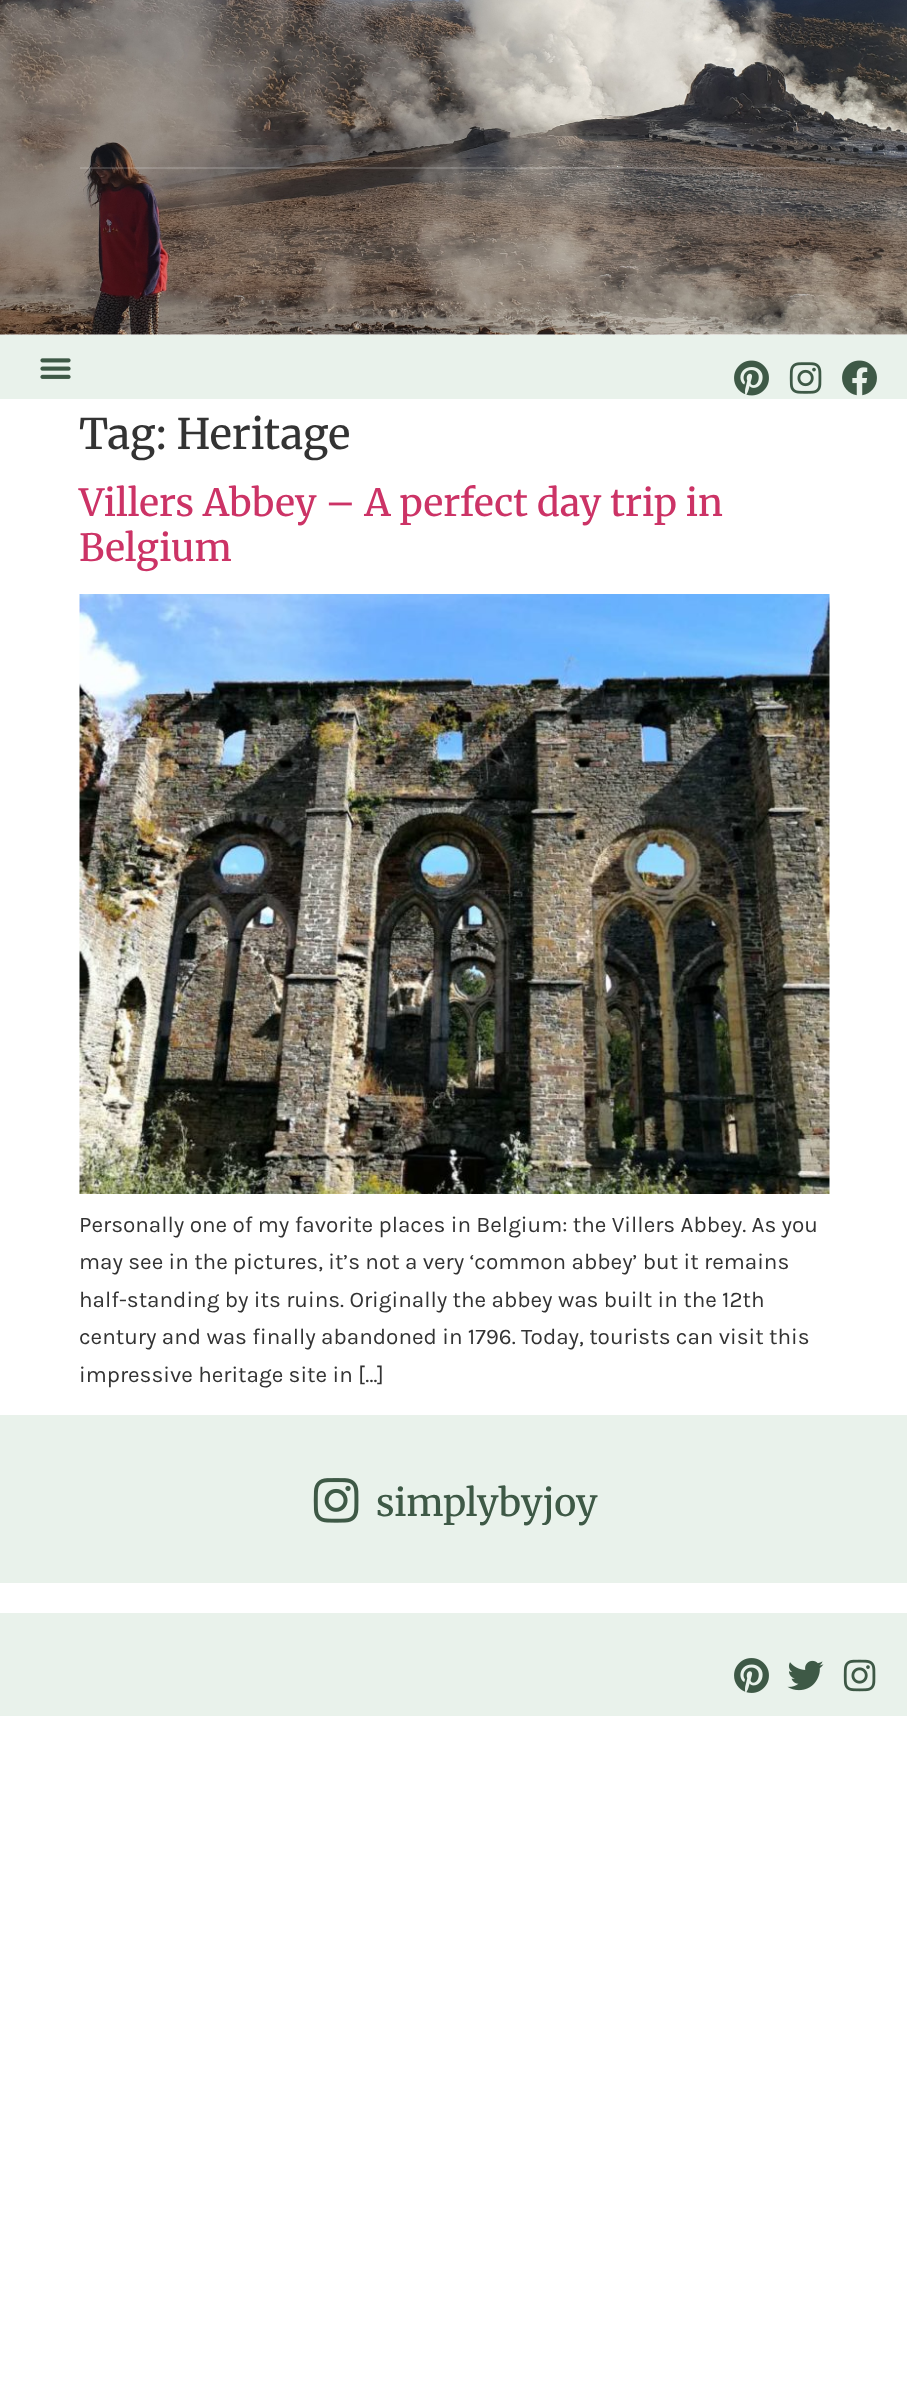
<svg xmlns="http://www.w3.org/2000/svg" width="907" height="2400">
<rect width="100%" height="100%" fill="#fff"/>
<image x="0" y="0" width="907" height="335" href="media/1.png"/>
<rect x="80" y="167" width="750" height="2" fill="#ffffff2b"/>
<rect y="335" width="907" height="64" fill="#e9f2eb"/>
<image x="40" y="358" width="31" height="21" href="media/2.png"/>
<image x="734" y="360" width="35" height="36" href="media/3.png"/>
<image x="789" y="362" width="33" height="32" href="media/4.png"/>
<image x="842" y="360" width="35" height="36" href="media/5.png"/>
<text x="79" y="449" style="font-family:Merriweather;font-size:42px;font-weight:500;fill:#333">Tag: Heritage</text>
<text x="79" y="516" style="font-family:Merriweather;font-size:37.5px;font-weight:500;fill:#c36">Villers Abbey – A perfect day trip in</text>
<text x="79" y="561" style="font-family:Merriweather;font-size:37.5px;font-weight:500;fill:#c36">Belgium</text>
<image x="79" y="594" width="751" height="600" href="media/6.png"/>
<text x="79" y="1232" style="font-family:Karla;font-size:22.5px;fill:#333">Personally one of my favorite places in Belgium: the Villers Abbey. As you</text>
<text x="79" y="1269" style="font-family:Karla;font-size:22.5px;fill:#333">may see in the pictures, it’s not a very ‘common abbey’ but it remains</text>
<text x="79" y="1307" style="font-family:Karla;font-size:22.5px;fill:#333">half-standing by its ruins. Originally the abbey was built in the 12th</text>
<text x="79" y="1344" style="font-family:Karla;font-size:22.5px;fill:#333">century and was finally abandoned in 1796. Today, tourists can visit this</text>
<text x="79" y="1382" style="font-family:Karla;font-size:22.5px;fill:#333">impressive heritage site in […]</text>
<rect y="1415" width="907" height="168" fill="#e9f2eb"/>
<image x="313" y="1478" width="46" height="45" href="media/7.png"/>
<text x="376" y="1516" style="font-family:Merriweather;font-size:37.5px;font-weight:500;fill:#3e5946">simplybyjoy</text>
<rect y="1613" width="907" height="103" fill="#e9f2eb"/>
<image x="734" y="1658" width="35" height="35" href="media/8.png"/>
<image x="787" y="1660" width="37" height="31" href="media/9.png"/>
<image x="843" y="1659" width="33" height="33" href="media/10.png"/>
</svg>
